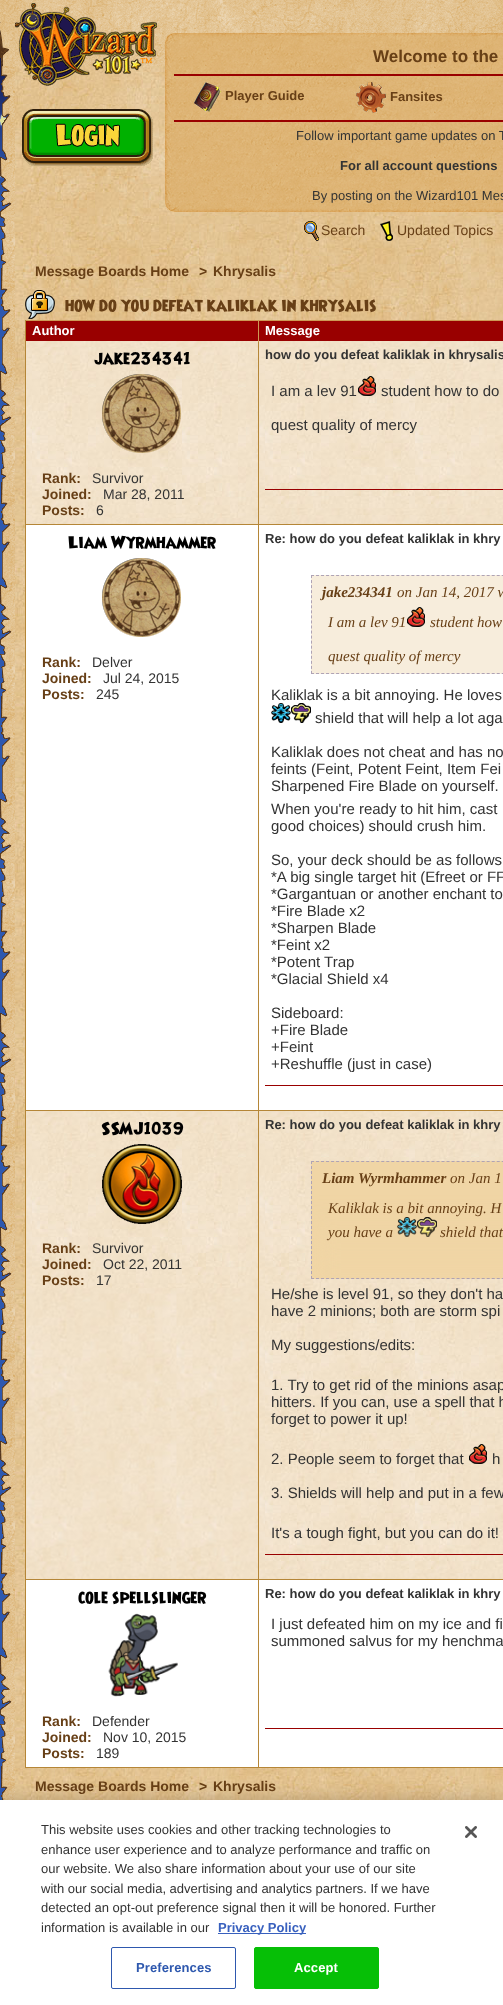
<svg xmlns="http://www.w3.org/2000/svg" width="503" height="2005">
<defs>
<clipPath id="clip1"><rect x="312" y="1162" width="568" height="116"/></clipPath>
</defs>
<rect width="100%" height="100%" fill="#2e58ae"/>
<image x="0" y="58" width="9" height="183" href="media/1.png"/>
<image x="0" y="1765" width="5" height="35" href="media/38.png"/>
<image x="0" y="61" width="15" height="1739" href="media/2.png"/>
<image x="0" y="0" width="503" height="66" href="media/3.png"/>
<image x="15" y="66" width="488" height="1734" href="media/4.png"/>
<image x="15" y="3" width="142" height="83" href="media/5.png"/>
<image x="22" y="109" width="131" height="57" href="media/6.png"/>
<image x="165" y="33" width="9" height="9" href="media/7.png"/>
<image x="174" y="33" width="329" height="9" href="media/8.png"/>
<image x="165" y="42" width="9" height="161" href="media/9.png"/>
<image x="174" y="42" width="329" height="161" href="media/10.png"/>
<text x="373" y="62" style="font-family:Liberation Sans;font-size:17px;font-weight:bold;fill:#673f16">Welcome to the</text>
<rect x="174" y="74" width="329" height="2" fill="#900"/>
<image x="194" y="82" width="27" height="30" href="media/11.png"/>
<text x="225" y="100" style="font-family:Liberation Sans;font-size:13px;font-weight:bold;fill:#673f16">Player Guide</text>
<image x="356" y="82" width="30" height="31" href="media/12.png"/>
<text x="390" y="101" style="font-family:Liberation Sans;font-size:13px;font-weight:bold;fill:#673f16">Fansites</text>
<rect x="174" y="120" width="329" height="2" fill="#900"/>
<text x="296" y="140" style="font-family:Liberation Sans;font-size:13px;fill:#333">Follow important game updates on T</text>
<text x="340" y="170" style="font-family:Liberation Sans;font-size:13px;font-weight:bold;fill:#333">For all account questions</text>
<text x="312" y="200" style="font-family:Liberation Sans;font-size:13px;fill:#333">By posting on the Wizard101 Mes</text>
<image x="165" y="203" width="9" height="9" href="media/13.png"/>
<image x="174" y="203" width="329" height="9" href="media/14.png"/>
<image x="304" y="221" width="15" height="20" href="media/15.png"/>
<text x="321" y="235" style="font-family:Liberation Sans;font-size:14px;fill:#673f16">Search</text>
<image x="380" y="221" width="13" height="20" href="media/16.png"/>
<text x="397" y="235" style="font-family:Liberation Sans;font-size:14px;fill:#673f16">Updated Topics</text>
<text x="35" y="276" style="font-family:Liberation Sans;font-size:14px;font-weight:bold;fill:#673f16">Message Boards Home</text>
<text x="199" y="276" style="font-family:Liberation Sans;font-size:14px;font-weight:bold;fill:#673f16">&gt;</text>
<text x="213" y="276" style="font-family:Liberation Sans;font-size:14px;font-weight:bold;fill:#673f16">Khrysalis</text>
<image x="25" y="290" width="30" height="29" href="media/17.png"/>
<text x="65" y="311" style="font-family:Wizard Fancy;font-size:16px;fill:#673f16">how do you defeat kaliklak in khrysalis</text>
<rect x="26" y="321" width="232" height="20" fill="#900"/>
<rect x="25" y="320" width="478" height="1" fill="#cd9a56"/>
<rect x="26" y="525" width="477" height="585" fill="#fff"/>
<rect x="26" y="1580" width="477" height="187" fill="#fff"/>
<rect x="258" y="1767" width="245" height="1" fill="#b58637"/>
<rect x="258" y="1579" width="1" height="189" fill="#b58637"/>
<rect x="258" y="1579" width="245" height="1" fill="#b58637"/>
<rect x="258" y="1110" width="1" height="470" fill="#b58637"/>
<rect x="258" y="1110" width="245" height="1" fill="#b58637"/>
<rect x="258" y="524" width="1" height="587" fill="#b58637"/>
<rect x="258" y="524" width="245" height="1" fill="#b58637"/>
<rect x="258" y="341" width="1" height="184" fill="#b58637"/>
<rect x="258" y="320" width="1" height="22" fill="#cd9a56"/>
<rect x="25" y="1767" width="234" height="1" fill="#b58637"/>
<rect x="25" y="1579" width="1" height="189" fill="#b58637"/>
<rect x="25" y="1579" width="234" height="1" fill="#b58637"/>
<rect x="25" y="1110" width="1" height="470" fill="#b58637"/>
<rect x="25" y="1110" width="234" height="1" fill="#b58637"/>
<rect x="25" y="524" width="1" height="587" fill="#b58637"/>
<rect x="25" y="524" width="234" height="1" fill="#b58637"/>
<rect x="25" y="341" width="1" height="184" fill="#b58637"/>
<rect x="25" y="320" width="1" height="22" fill="#b58637"/>
<text x="32" y="335" style="font-family:Liberation Sans;font-size:13px;font-weight:bold;fill:#fff">Author</text>
<rect x="259" y="321" width="244" height="20" fill="#900"/>
<text x="265" y="335" style="font-family:Liberation Sans;font-size:13px;font-weight:bold;fill:#fff">Message</text>
<image x="26" y="341" width="232" height="183" href="media/18.png"/>
<image x="32" y="347" width="220" height="171" href="media/19.png"/>
<text x="94" y="364" style="font-family:Wizard Fancy;font-size:16px;fill:#000">jake234341</text>
<image x="102" y="374" width="79" height="79" href="media/20.png"/>
<text x="42" y="483" style="font-family:Liberation Sans;font-size:14px;font-weight:bold;fill:#673f16">Rank:</text>
<text x="92" y="483" style="font-family:Liberation Sans;font-size:14px;fill:#333">Survivor</text>
<text x="42" y="499" style="font-family:Liberation Sans;font-size:14px;font-weight:bold;fill:#673f16">Joined:</text>
<text x="103" y="499" style="font-family:Liberation Sans;font-size:14px;fill:#333">Mar 28, 2011</text>
<text x="42" y="515" style="font-family:Liberation Sans;font-size:14px;font-weight:bold;fill:#673f16">Posts:</text>
<text x="96" y="515" style="font-family:Liberation Sans;font-size:14px;fill:#333">6</text>
<image x="259" y="341" width="244" height="183" href="media/21.png"/>
<image x="265" y="347" width="238" height="161" href="media/22.png"/>
<text x="265" y="359" style="font-family:Liberation Sans;font-size:13px;font-weight:bold;fill:#333">how do you defeat kaliklak in khrysalis</text>
<text x="271" y="396" style="font-family:Liberation Sans;font-size:15px;fill:#333">I am a lev 91</text>
<image x="358" y="376" width="18" height="20" href="media/23.png"/>
<text x="381" y="396" style="font-family:Liberation Sans;font-size:15px;fill:#333">student how to do</text>
<text x="271" y="430" style="font-family:Liberation Sans;font-size:15px;fill:#333">quest quality of mercy</text>
<rect x="265" y="489" width="238" height="1" fill="#900"/>
<image x="273" y="496" width="223" height="9" href="media/24.png"/>
<text x="68" y="548" style="font-family:Wizard Fancy;font-size:16px;fill:#000">Liam Wyrmhammer</text>
<image x="102" y="558" width="79" height="79" href="media/25.png"/>
<text x="42" y="667" style="font-family:Liberation Sans;font-size:14px;font-weight:bold;fill:#673f16">Rank:</text>
<text x="92" y="667" style="font-family:Liberation Sans;font-size:14px;fill:#333">Delver</text>
<text x="42" y="683" style="font-family:Liberation Sans;font-size:14px;font-weight:bold;fill:#673f16">Joined:</text>
<text x="103" y="683" style="font-family:Liberation Sans;font-size:14px;fill:#333">Jul 24, 2015</text>
<text x="42" y="699" style="font-family:Liberation Sans;font-size:14px;font-weight:bold;fill:#673f16">Posts:</text>
<text x="96" y="699" style="font-family:Liberation Sans;font-size:14px;fill:#333">245</text>
<text x="265" y="543" style="font-family:Liberation Sans;font-size:13px;font-weight:bold;fill:#333">Re: how do you defeat kaliklak in khry</text>
<rect x="311" y="575" width="192" height="99" fill="#f7eddc"/>
<path d="M311 575.5h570" fill="none" stroke="#afa3b5" stroke-dasharray="3 2.02"/>
<path d="M311 673.5h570" fill="none" stroke="#afa3b5" stroke-dasharray="3 2.02"/>
<path d="M311.5 575v99" fill="none" stroke="#afa3b5" stroke-dasharray="3 2.05"/>
<text x="322" y="597" style="font-family:Liberation Serif;font-size:15px;font-weight:bold;font-style:italic;fill:#673f16">jake234341</text>
<text x="397" y="597" style="font-family:Liberation Serif;font-size:15px;font-style:italic;fill:#673f16">on Jan 14, 2017 w</text>
<text x="328" y="627" style="font-family:Liberation Serif;font-size:15px;font-style:italic;fill:#673f16">I am a lev 91</text>
<image x="407" y="607" width="18" height="20" href="media/26.png"/>
<text x="430" y="627" style="font-family:Liberation Serif;font-size:15px;font-style:italic;fill:#673f16">student how</text>
<text x="328" y="661" style="font-family:Liberation Serif;font-size:15px;font-style:italic;fill:#673f16">quest quality of mercy</text>
<text x="271" y="700" style="font-family:Liberation Sans;font-size:15px;fill:#333">Kaliklak is a bit annoying. He loves</text>
<image x="271" y="703" width="20" height="20" href="media/27.png"/>
<image x="291" y="703" width="20" height="20" href="media/28.png"/>
<text x="315" y="723" style="font-family:Liberation Sans;font-size:15px;fill:#333">shield that will help a lot aga</text>
<text x="271" y="757" style="font-family:Liberation Sans;font-size:15px;fill:#333">Kaliklak does not cheat and has no</text>
<text x="271" y="774" style="font-family:Liberation Sans;font-size:15px;fill:#333">feints (Feint, Potent Feint, Item Fei</text>
<text x="271" y="791" style="font-family:Liberation Sans;font-size:15px;fill:#333">Sharpened Fire Blade on yourself.</text>
<text x="271" y="814" style="font-family:Liberation Sans;font-size:15px;fill:#333">When you're ready to hit him, cast</text>
<text x="271" y="831" style="font-family:Liberation Sans;font-size:15px;fill:#333">good choices) should crush him.</text>
<text x="271" y="865" style="font-family:Liberation Sans;font-size:15px;fill:#333">So, your deck should be as follows</text>
<text x="271" y="882" style="font-family:Liberation Sans;font-size:15px;fill:#333">*A big single target hit (Efreet or FF</text>
<text x="271" y="899" style="font-family:Liberation Sans;font-size:15px;fill:#333">*Gargantuan or another enchant to</text>
<text x="271" y="916" style="font-family:Liberation Sans;font-size:15px;fill:#333">*Fire Blade x2</text>
<text x="271" y="933" style="font-family:Liberation Sans;font-size:15px;fill:#333">*Sharpen Blade</text>
<text x="271" y="950" style="font-family:Liberation Sans;font-size:15px;fill:#333">*Feint x2</text>
<text x="271" y="967" style="font-family:Liberation Sans;font-size:15px;fill:#333">*Potent Trap</text>
<text x="271" y="984" style="font-family:Liberation Sans;font-size:15px;fill:#333">*Glacial Shield x4</text>
<text x="271" y="1018" style="font-family:Liberation Sans;font-size:15px;fill:#333">Sideboard:</text>
<text x="271" y="1035" style="font-family:Liberation Sans;font-size:15px;fill:#333">+Fire Blade</text>
<text x="271" y="1052" style="font-family:Liberation Sans;font-size:15px;fill:#333">+Feint</text>
<text x="271" y="1069" style="font-family:Liberation Sans;font-size:15px;fill:#333">+Reshuffle (just in case)</text>
<rect x="265" y="1085" width="238" height="1" fill="#900"/>
<image x="26" y="1111" width="232" height="468" href="media/29.png"/>
<image x="32" y="1117" width="220" height="171" href="media/19.png"/>
<text x="100" y="1134" style="font-family:Wizard Fancy;font-size:16px;fill:#000">SSMJ1039</text>
<image x="102" y="1144" width="80" height="80" href="media/30.png"/>
<text x="42" y="1253" style="font-family:Liberation Sans;font-size:14px;font-weight:bold;fill:#673f16">Rank:</text>
<text x="92" y="1253" style="font-family:Liberation Sans;font-size:14px;fill:#333">Survivor</text>
<text x="42" y="1269" style="font-family:Liberation Sans;font-size:14px;font-weight:bold;fill:#673f16">Joined:</text>
<text x="103" y="1269" style="font-family:Liberation Sans;font-size:14px;fill:#333">Oct 22, 2011</text>
<text x="42" y="1285" style="font-family:Liberation Sans;font-size:14px;font-weight:bold;fill:#673f16">Posts:</text>
<text x="96" y="1285" style="font-family:Liberation Sans;font-size:14px;fill:#333">17</text>
<image x="259" y="1111" width="244" height="468" href="media/31.png"/>
<image x="265" y="1117" width="238" height="444" href="media/32.png"/>
<text x="265" y="1129" style="font-family:Liberation Sans;font-size:13px;font-weight:bold;fill:#333">Re: how do you defeat kaliklak in khry</text>
<rect x="311" y="1161" width="192" height="118" fill="#f0d5a5"/>
<path d="M311 1161.5h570" fill="none" stroke="#afa3b5" stroke-dasharray="3 2.02"/>
<path d="M311 1278.5h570" fill="none" stroke="#afa3b5" stroke-dasharray="3 2.02"/>
<path d="M311.5 1161v118" fill="none" stroke="#afa3b5" stroke-dasharray="3 2"/>
<text x="322" y="1183" style="font-family:Liberation Serif;font-size:15px;font-weight:bold;font-style:italic;fill:#673f16">Liam Wyrmhammer</text>
<text x="450" y="1183" style="font-family:Liberation Serif;font-size:15px;font-style:italic;fill:#673f16">on Jan 1</text>
<image x="397" y="1217" width="20" height="20" href="media/33.png"/>
<image x="417" y="1217" width="20" height="20" href="media/34.png"/>
<g clip-path="url(#clip1)">
<rect x="292" y="1244" width="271" height="54" fill="#f0d5a5" filter="blur(20px)"/>
</g>
<text x="328" y="1213" style="font-family:Liberation Serif;font-size:15px;font-style:italic;fill:#673f16">Kaliklak is a bit annoying. H</text>
<text x="328" y="1237" style="font-family:Liberation Serif;font-size:15px;font-style:italic;fill:#673f16">you have a</text>
<text x="440" y="1237" style="font-family:Liberation Serif;font-size:15px;font-style:italic;fill:#673f16">shield that</text>
<text x="271" y="1299" style="font-family:Liberation Sans;font-size:15px;fill:#333">He/she is level 91, so they don't ha</text>
<text x="271" y="1316" style="font-family:Liberation Sans;font-size:15px;fill:#333">have 2 minions; both are storm spi</text>
<text x="271" y="1350" style="font-family:Liberation Sans;font-size:15px;fill:#333">My suggestions/edits:</text>
<text x="271" y="1390" style="font-family:Liberation Sans;font-size:15px;fill:#333">1. Try to get rid of the minions asap</text>
<text x="271" y="1407" style="font-family:Liberation Sans;font-size:15px;fill:#333">hitters. If you can, use a spell that h</text>
<text x="271" y="1424" style="font-family:Liberation Sans;font-size:15px;fill:#333">forget to power it up!</text>
<text x="271" y="1464" style="font-family:Liberation Sans;font-size:15px;fill:#333">2. People seem to forget that</text>
<image x="469" y="1444" width="18" height="20" href="media/35.png"/>
<text x="492" y="1464" style="font-family:Liberation Sans;font-size:15px;fill:#333">h</text>
<text x="271" y="1498" style="font-family:Liberation Sans;font-size:15px;fill:#333">3. Shields will help and put in a few</text>
<text x="271" y="1538" style="font-family:Liberation Sans;font-size:15px;fill:#333">It's a tough fight, but you can do it!</text>
<rect x="265" y="1554" width="238" height="1" fill="#900"/>
<image x="265" y="1561" width="238" height="12" href="media/36.png"/>
<text x="78" y="1603" style="font-family:Wizard Fancy;font-size:16px;fill:#000">cole spellslinger</text>
<image x="108" y="1613" width="70" height="84" href="media/37.png"/>
<text x="42" y="1726" style="font-family:Liberation Sans;font-size:14px;font-weight:bold;fill:#673f16">Rank:</text>
<text x="92" y="1726" style="font-family:Liberation Sans;font-size:14px;fill:#333">Defender</text>
<text x="42" y="1742" style="font-family:Liberation Sans;font-size:14px;font-weight:bold;fill:#673f16">Joined:</text>
<text x="103" y="1742" style="font-family:Liberation Sans;font-size:14px;fill:#333">Nov 10, 2015</text>
<text x="42" y="1758" style="font-family:Liberation Sans;font-size:14px;font-weight:bold;fill:#673f16">Posts:</text>
<text x="96" y="1758" style="font-family:Liberation Sans;font-size:14px;fill:#333">189</text>
<text x="265" y="1598" style="font-family:Liberation Sans;font-size:13px;font-weight:bold;fill:#333">Re: how do you defeat kaliklak in khry</text>
<text x="271" y="1629" style="font-family:Liberation Sans;font-size:15px;fill:#333">I just defeated him on my ice and fi</text>
<text x="271" y="1646" style="font-family:Liberation Sans;font-size:15px;fill:#333">summoned salvus for my henchma</text>
<rect x="265" y="1728" width="238" height="1" fill="#900"/>
<text x="35" y="1791" style="font-family:Liberation Sans;font-size:14px;font-weight:bold;fill:#673f16">Message Boards Home</text>
<text x="199" y="1791" style="font-family:Liberation Sans;font-size:14px;font-weight:bold;fill:#673f16">&gt;</text>
<text x="213" y="1791" style="font-family:Liberation Sans;font-size:14px;font-weight:bold;fill:#673f16">Khrysalis</text>
<rect y="1800" width="503" height="205" fill="#00000033" filter="blur(9px)"/>
<rect y="1800" width="503" height="205" fill="#fff"/>
<text x="41" y="1834" style="font-family:Liberation Sans;font-size:13px;fill:#333">This website uses cookies and other tracking technologies to</text>
<text x="41" y="1854" style="font-family:Liberation Sans;font-size:13px;fill:#333">enhance user experience and to analyze performance and traffic on</text>
<text x="41" y="1873" style="font-family:Liberation Sans;font-size:13px;fill:#333">our website. We also share information about your use of our site</text>
<text x="41" y="1893" style="font-family:Liberation Sans;font-size:13px;fill:#333">with our social media, advertising and analytics partners. If we have</text>
<text x="41" y="1912" style="font-family:Liberation Sans;font-size:13px;fill:#333">detected an opt-out preference signal then it will be honored. Further</text>
<text x="41" y="1932" style="font-family:Liberation Sans;font-size:13px;fill:#333">information is available in our</text>
<rect x="218" y="1933" width="88" height="1" fill="#3860be"/>
<text x="218" y="1932" style="font-family:Liberation Sans;font-size:13px;font-weight:bold;fill:#3860be">Privacy Policy</text>
<rect x="111.5" y="1947.5" width="124" height="41" rx="1.5" fill="none" stroke="#2e58ae"/>
<text x="136" y="1972" style="font-family:Liberation Sans;font-size:13px;font-weight:bold;letter-spacing:0.1px;fill:#2e58ae">Preferences</text>
<rect x="254.5" y="1947.5" width="124" height="41" rx="1.5" fill="#06bf06" stroke="#06bf06"/>
<text x="294" y="1972" style="font-family:Liberation Sans;font-size:13px;font-weight:bold;letter-spacing:0.1px;fill:#fff">Accept</text>
<image x="465" y="1826" width="12" height="12" href="media/39.png"/>
</svg>
